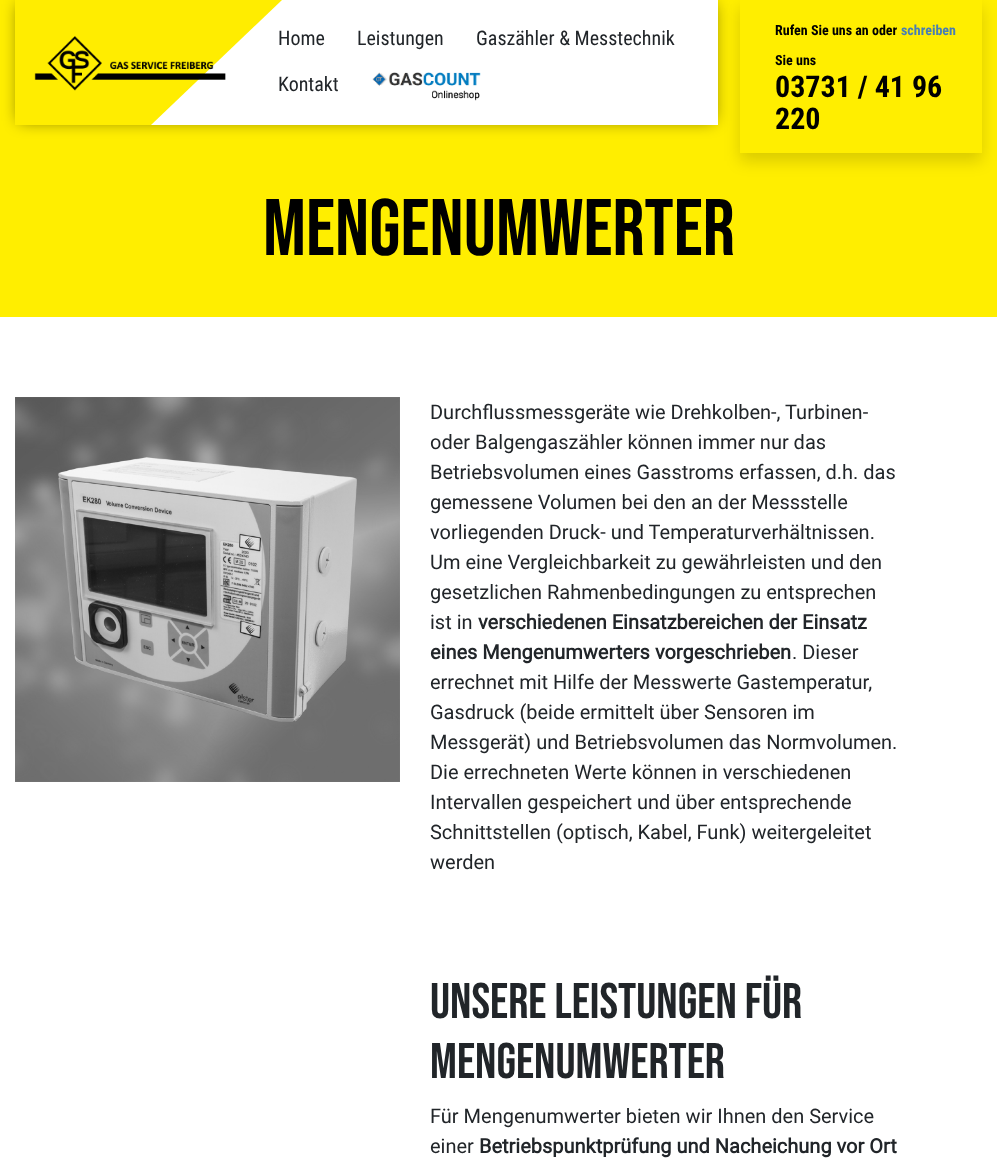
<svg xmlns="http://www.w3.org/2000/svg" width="997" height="1174">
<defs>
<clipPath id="clip1"><path d="M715 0h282v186h-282zm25 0h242v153h-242z" clip-rule="evenodd"/></clipPath>
</defs>
<rect width="100%" height="100%" fill="#fff"/>
<rect width="997" height="317" fill="#fe0"/>
<rect x="19" y="4" width="695" height="117" fill="#0000008a" filter="blur(8px)"/>
<rect x="151" width="567" height="125" fill="#fff"/>
<path d="M151 125h-136v-125h267z" fill="#ffed00"/>
<image x="34" y="36" width="192" height="55" href="media/1.png"/>
<text x="278" y="45" style="font-family:Roboto Condensed;font-size:20px;fill:#212529">Home</text>
<text x="357" y="45" style="font-family:Roboto Condensed;font-size:20px;fill:#212529">Leistungen</text>
<text x="476" y="45" style="font-family:Roboto Condensed;font-size:20px;fill:#212529">Gaszähler &amp; Messtechnik</text>
<text x="278" y="91" style="font-family:Roboto Condensed;font-size:20px;fill:#212529">Kontakt</text>
<image x="372" y="72" width="109" height="29" href="media/2.png"/>
<g clip-path="url(#clip1)">
<rect x="740" y="8" width="242" height="153" fill="#00000026" filter="blur(8px)"/>
</g>
<text x="775" y="35" style="font-family:Roboto Condensed;font-size:14px;font-weight:bold;fill:#000">Rufen Sie uns an oder</text>
<text x="901" y="35" style="font-family:Roboto Condensed;font-size:14px;font-weight:bold;fill:#497eb3">schreiben</text>
<text x="775" y="65" style="font-family:Roboto Condensed;font-size:14px;font-weight:bold;fill:#000">Sie uns</text>
<text x="775" y="97" style="font-family:Roboto Condensed;font-size:30px;font-weight:bold;fill:#000">03731 / 41 96</text>
<text x="775" y="129" style="font-family:Roboto Condensed;font-size:30px;font-weight:bold;fill:#000">220</text>
<text x="263" y="255" style="font-family:Bebas Neue;font-size:80px;fill:#000">Mengenumwerter</text>
<image x="15" y="397" width="385" height="385" href="media/3.png"/>
<text x="430" y="419" style="font-family:Roboto;font-size:20px;fill:#212529">Durchflussmessgeräte wie Drehkolben-, Turbinen-</text>
<text x="430" y="449" style="font-family:Roboto;font-size:20px;fill:#212529">oder Balgengaszähler können immer nur das</text>
<text x="430" y="479" style="font-family:Roboto;font-size:20px;fill:#212529">Betriebsvolumen eines Gasstroms erfassen, d.h. das</text>
<text x="430" y="509" style="font-family:Roboto;font-size:20px;fill:#212529">gemessene Volumen bei den an der Messstelle</text>
<text x="430" y="539" style="font-family:Roboto;font-size:20px;fill:#212529">vorliegenden Druck- und Temperaturverhältnissen.</text>
<text x="430" y="569" style="font-family:Roboto;font-size:20px;fill:#212529">Um eine Vergleichbarkeit zu gewährleisten und den</text>
<text x="430" y="599" style="font-family:Roboto;font-size:20px;fill:#212529">gesetzlichen Rahmenbedingungen zu entsprechen</text>
<text x="430" y="629" style="font-family:Roboto;font-size:20px;fill:#212529">ist in</text>
<text x="478" y="629" style="font-family:Roboto;font-size:20px;font-weight:bold;fill:#212529">verschiedenen Einsatzbereichen der Einsatz</text>
<text x="430" y="659" style="font-family:Roboto;font-size:20px;font-weight:bold;fill:#212529">eines Mengenumwerters vorgeschrieben</text>
<text x="792" y="659" style="font-family:Roboto;font-size:20px;fill:#212529">. Dieser</text>
<text x="430" y="689" style="font-family:Roboto;font-size:20px;fill:#212529">errechnet mit Hilfe der Messwerte Gastemperatur,</text>
<text x="430" y="719" style="font-family:Roboto;font-size:20px;fill:#212529">Gasdruck (beide ermittelt über Sensoren im</text>
<text x="430" y="749" style="font-family:Roboto;font-size:20px;fill:#212529">Messgerät) und Betriebsvolumen das Normvolumen.</text>
<text x="430" y="779" style="font-family:Roboto;font-size:20px;fill:#212529">Die errechneten Werte können in verschiedenen</text>
<text x="430" y="809" style="font-family:Roboto;font-size:20px;fill:#212529">Intervallen gespeichert und über entsprechende</text>
<text x="430" y="839" style="font-family:Roboto;font-size:20px;fill:#212529">Schnittstellen (optisch, Kabel, Funk) weitergeleitet</text>
<text x="430" y="869" style="font-family:Roboto;font-size:20px;fill:#212529">werden</text>
<text x="430" y="1018" style="font-family:Bebas Neue;font-size:50px;fill:#212529">Unsere Leistungen für</text>
<text x="430" y="1078" style="font-family:Bebas Neue;font-size:50px;fill:#212529">Mengenumwerter</text>
<text x="430" y="1123" style="font-family:Roboto;font-size:20px;fill:#212529">Für Mengenumwerter bieten wir Ihnen den Service</text>
<text x="430" y="1153" style="font-family:Roboto;font-size:20px;fill:#212529">einer</text>
<text x="479" y="1153" style="font-family:Roboto;font-size:20px;font-weight:bold;fill:#212529">Betriebspunktprüfung und Nacheichung vor Ort</text>
</svg>
